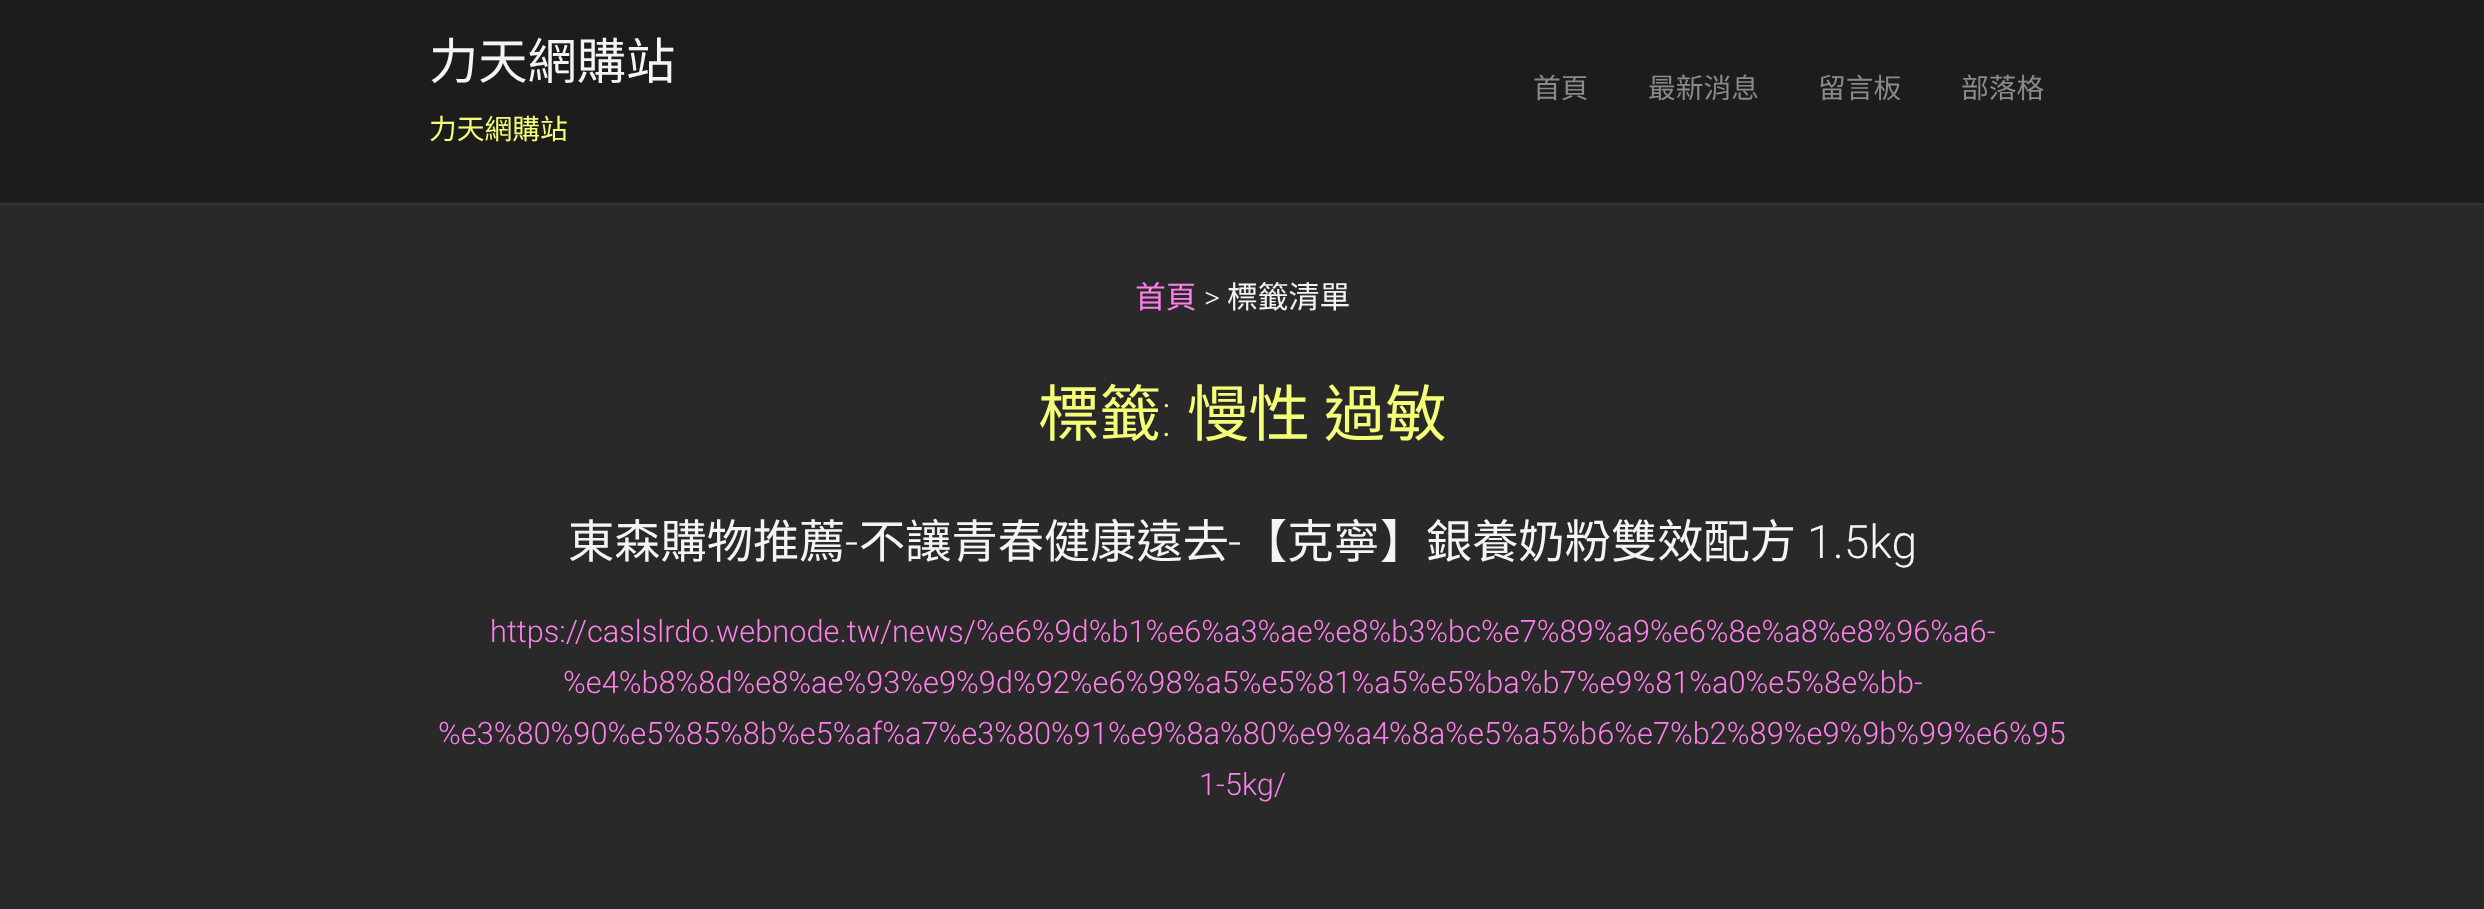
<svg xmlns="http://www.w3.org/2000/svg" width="2484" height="909">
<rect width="100%" height="100%" fill="#292929"/>
<rect width="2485" height="203" fill="#4c4c4c" filter="blur(2px)"/>
<rect width="2484" height="203" fill="#1c1c1c"/>
<text x="429" y="79" style="font-family:Noto Sans CJK TC;font-size:49.25px;fill:#f4f4f4">力天網購站</text>
<text x="429" y="139" style="font-family:Noto Sans CJK TC;font-size:27.75px;fill:#f4ff77">力天網購站</text>
<text x="1533" y="98" style="font-family:Noto Sans CJK TC;font-size:27.75px;fill:#8a8a8a">首頁</text>
<text x="1648" y="98" style="font-family:Noto Sans CJK TC;font-size:27.75px;fill:#8a8a8a">最新消息</text>
<text x="1818" y="98" style="font-family:Noto Sans CJK TC;font-size:27.75px;fill:#8a8a8a">留言板</text>
<text x="1961" y="98" style="font-family:Noto Sans CJK TC;font-size:27.75px;fill:#8a8a8a">部落格</text>
<text x="1135" y="308" style="font-family:Noto Sans CJK TC;font-size:30.8px;fill:#ff80eb">首頁</text>
<text x="1204" y="308" style="font-family:Roboto;font-size:30.8px;font-weight:300;fill:#f4f4f4">&gt;</text>
<text x="1227" y="308" style="font-family:Noto Sans CJK TC;font-size:30.8px;fill:#f4f4f4">標籤清單</text>
<text x="1038" y="436" style="font-family:Noto Sans CJK TC;font-size:61.5px;fill:#f4ff77">標籤</text>
<text x="1161" y="436" style="font-family:Roboto;font-size:61.5px;font-weight:100;fill:#f4ff77">:</text>
<text x="1187" y="436" style="font-family:Noto Sans CJK TC;font-size:61.5px;fill:#f4ff77">慢性 過敏</text>
<text x="568" y="558" style="font-family:Noto Sans CJK TC;font-size:46.25px;fill:#f4f4f4">東森購物推薦</text>
<text x="845" y="558" style="font-family:Roboto;font-size:46.25px;font-weight:300;fill:#f4f4f4">-</text>
<text x="859" y="558" style="font-family:Noto Sans CJK TC;font-size:46.25px;fill:#f4f4f4">不讓青春健康遠去</text>
<text x="1228" y="558" style="font-family:Roboto;font-size:46.25px;font-weight:300;fill:#f4f4f4">-</text>
<text x="1241" y="558" style="font-family:Noto Sans CJK TC;font-size:46.25px;fill:#f4f4f4">【克寧】銀養奶粉雙效配方</text>
<text x="1807" y="558" style="font-family:Roboto;font-size:46.25px;font-weight:300;fill:#f4f4f4">1.5kg</text>
<text x="490" y="642" style="font-family:Roboto;font-size:30.8px;font-weight:300;fill:#ff80eb">https://caslslrdo.webnode.tw/news/%e6%9d%b1%e6%a3%ae%e8%b3%bc%e7%89%a9%e6%8e%a8%e8%96%a6-</text>
<text x="563" y="693" style="font-family:Roboto;font-size:30.8px;font-weight:300;fill:#ff80eb">%e4%b8%8d%e8%ae%93%e9%9d%92%e6%98%a5%e5%81%a5%e5%ba%b7%e9%81%a0%e5%8e%bb-</text>
<text x="438" y="744" style="font-family:Roboto;font-size:30.8px;font-weight:300;fill:#ff80eb">%e3%80%90%e5%85%8b%e5%af%a7%e3%80%91%e9%8a%80%e9%a4%8a%e5%a5%b6%e7%b2%89%e9%9b%99%e6%95</text>
<text x="1199" y="795" style="font-family:Roboto;font-size:30.8px;font-weight:300;fill:#ff80eb">1-5kg/</text>
</svg>
